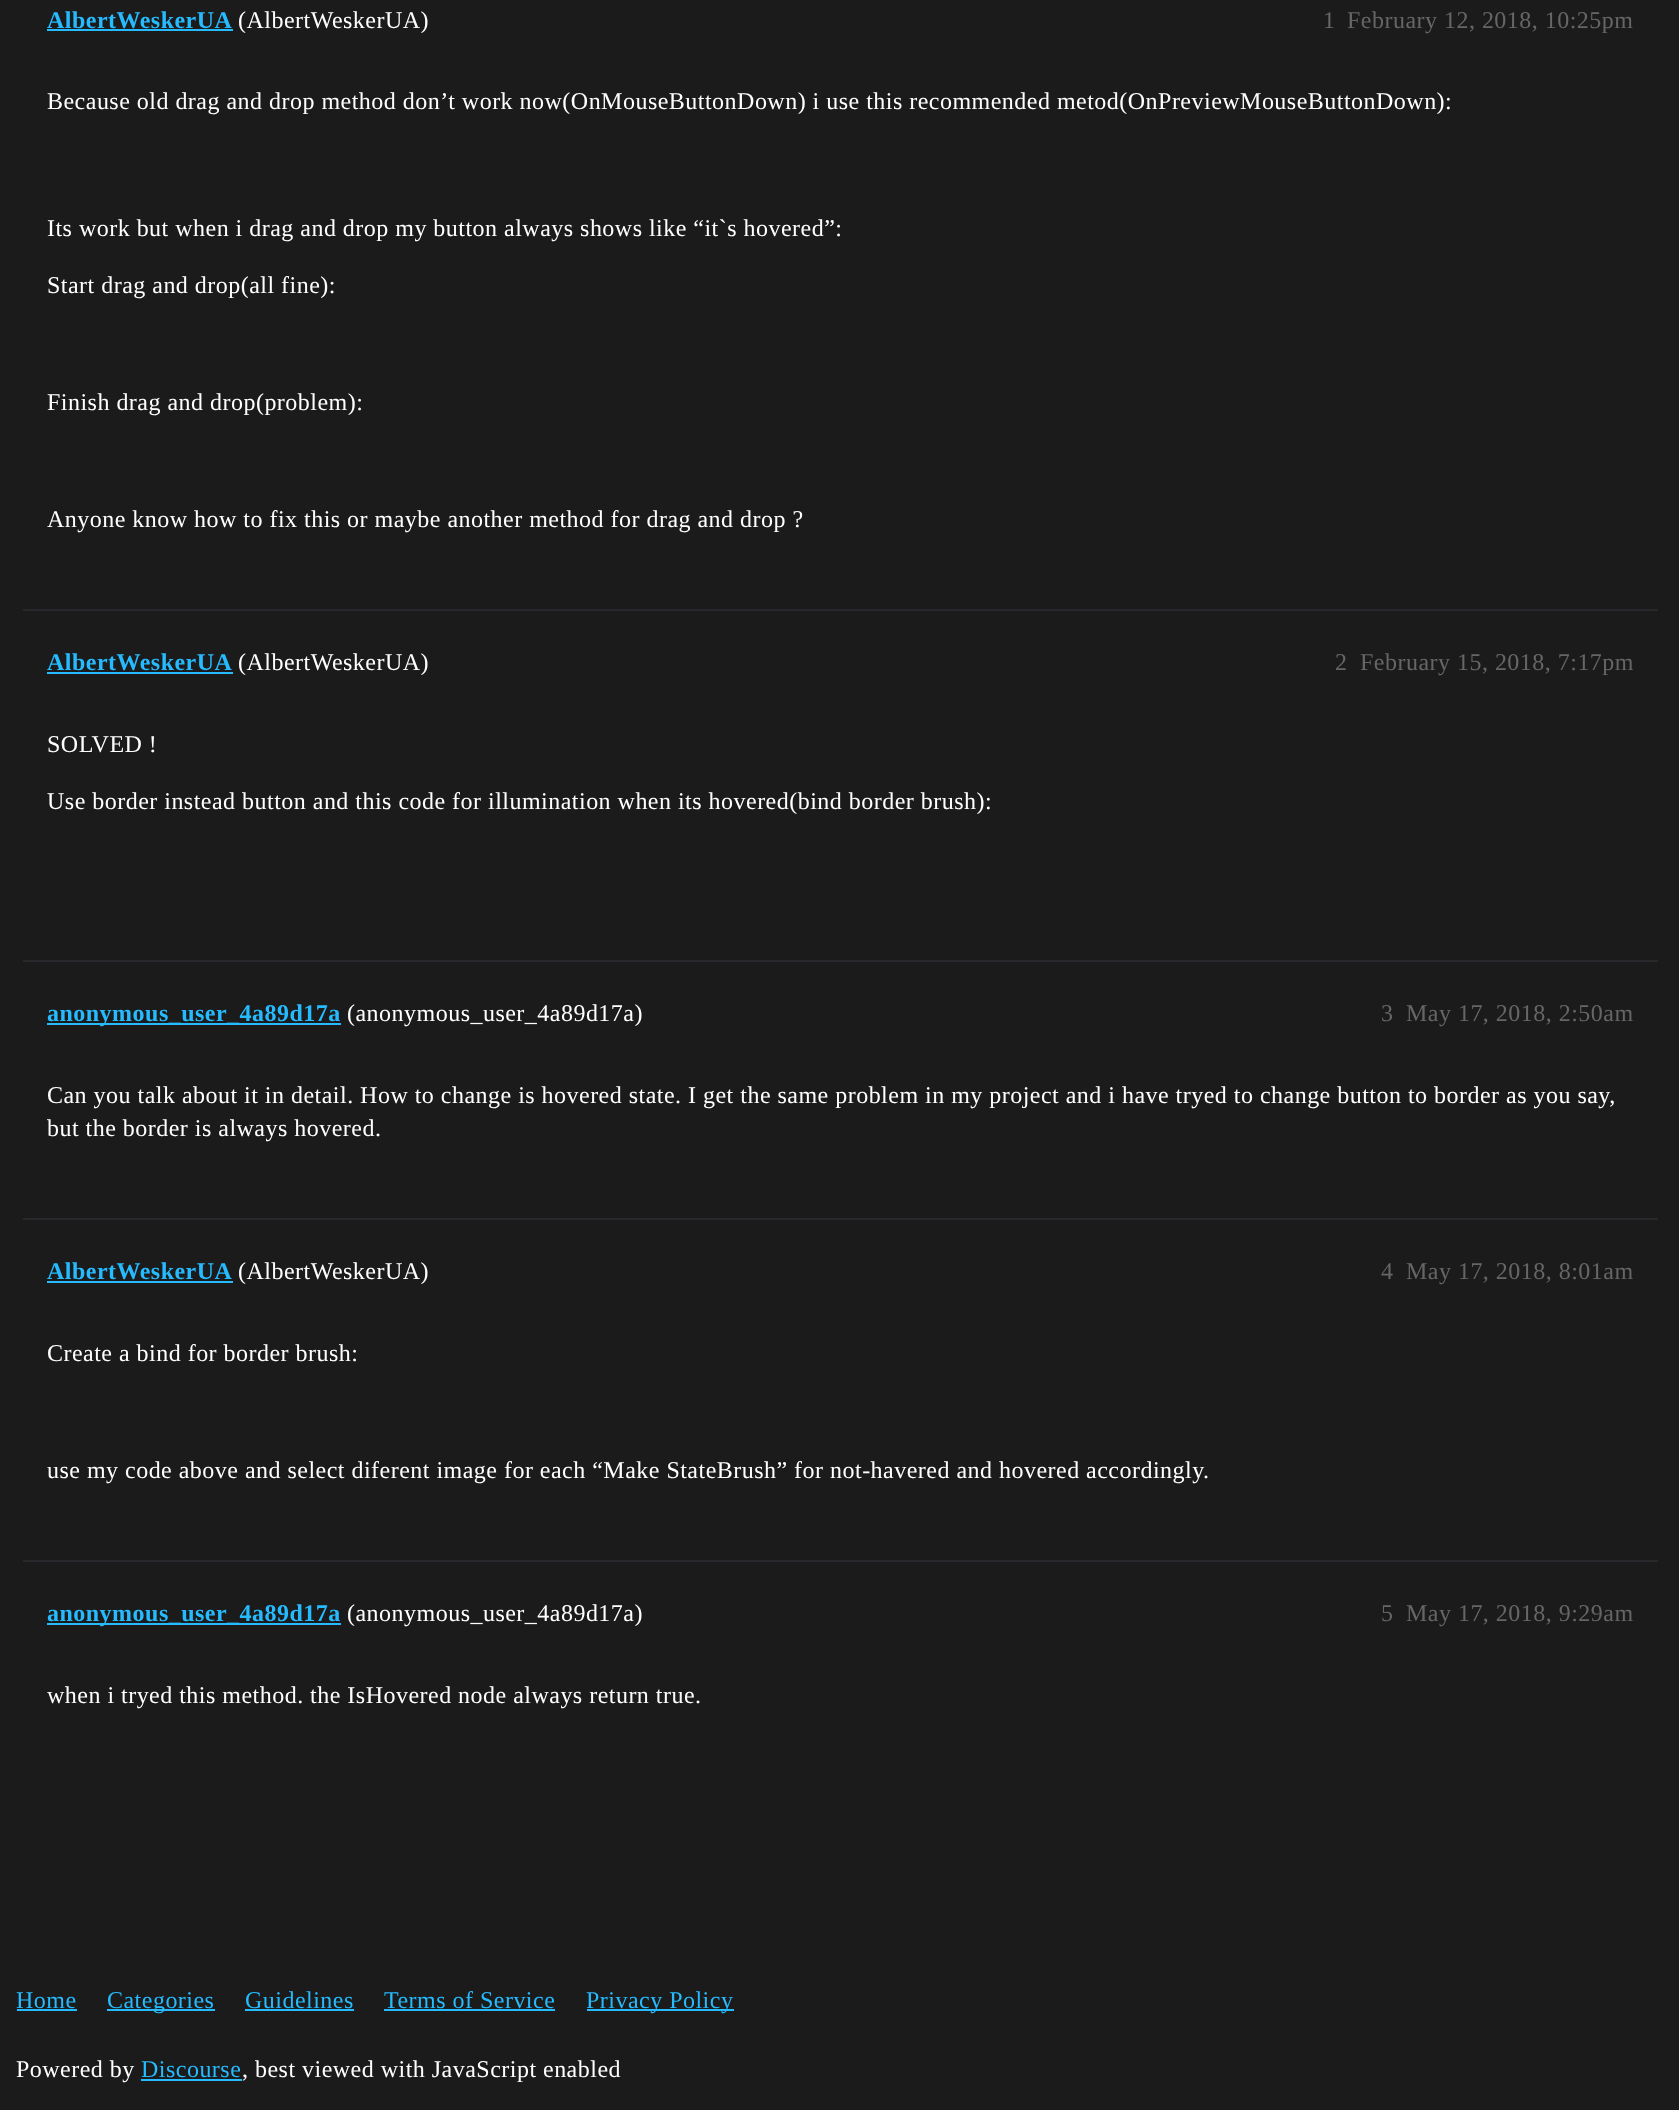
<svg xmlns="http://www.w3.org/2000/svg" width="1679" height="2110">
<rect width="100%" height="100%" fill="#1b1b1b"/>
<text x="47" y="28" style="font-family:Liberation Serif;font-size:24px;font-weight:bold;letter-spacing:0.48px;fill:#26bbff">AlbertWeskerUA</text>
<rect x="47" y="29" width="186" height="2" fill="#26bbff"/>
<text x="238" y="28" style="font-family:Liberation Serif;font-size:24px;letter-spacing:0.48px;fill:#fff">(AlbertWeskerUA)</text>
<text x="1323" y="28" style="font-family:Liberation Serif;font-size:24px;letter-spacing:0.48px;fill:#666">1</text>
<text x="1347" y="28" style="font-family:Liberation Serif;font-size:24px;letter-spacing:0.48px;fill:#666">February 12, 2018, 10:25pm</text>
<text x="47" y="109" style="font-family:Liberation Serif;font-size:24px;letter-spacing:0.48px;fill:#fff">Because old drag and drop method don’t work now(OnMouseButtonDown) i use this recommended metod(OnPreviewMouseButtonDown):</text>
<text x="47" y="236" style="font-family:Liberation Serif;font-size:24px;letter-spacing:0.48px;fill:#fff">Its work but when i drag and drop my button always shows like “it`s hovered”:</text>
<text x="47" y="293" style="font-family:Liberation Serif;font-size:24px;letter-spacing:0.48px;fill:#fff">Start drag and drop(all fine):</text>
<text x="47" y="410" style="font-family:Liberation Serif;font-size:24px;letter-spacing:0.48px;fill:#fff">Finish drag and drop(problem):</text>
<text x="47" y="527" style="font-family:Liberation Serif;font-size:24px;letter-spacing:0.48px;fill:#fff">Anyone know how to fix this or maybe another method for drag and drop ?</text>
<rect x="23" y="609" width="1635" height="2" fill="#28282c"/>
<text x="47" y="670" style="font-family:Liberation Serif;font-size:24px;font-weight:bold;letter-spacing:0.48px;fill:#26bbff">AlbertWeskerUA</text>
<rect x="47" y="672" width="186" height="2" fill="#26bbff"/>
<text x="238" y="670" style="font-family:Liberation Serif;font-size:24px;letter-spacing:0.48px;fill:#fff">(AlbertWeskerUA)</text>
<text x="1335" y="670" style="font-family:Liberation Serif;font-size:24px;letter-spacing:0.48px;fill:#666">2</text>
<text x="1360" y="670" style="font-family:Liberation Serif;font-size:24px;letter-spacing:0.48px;fill:#666">February 15, 2018, 7:17pm</text>
<text x="47" y="752" style="font-family:Liberation Serif;font-size:24px;letter-spacing:0.48px;fill:#fff">SOLVED !</text>
<text x="47" y="809" style="font-family:Liberation Serif;font-size:24px;letter-spacing:0.48px;fill:#fff">Use border instead button and this code for illumination when its hovered(bind border brush):</text>
<rect x="23" y="960" width="1635" height="2" fill="#28282c"/>
<rect x="47" y="1023" width="294" height="2" fill="#26bbff"/>
<text x="47" y="1021" style="font-family:Liberation Serif;font-size:24px;font-weight:bold;letter-spacing:0.48px;fill:#26bbff">anonymous_user_4a89d17a</text>
<text x="347" y="1021" style="font-family:Liberation Serif;font-size:24px;letter-spacing:0.48px;fill:#fff">(anonymous_user_4a89d17a)</text>
<text x="1381" y="1021" style="font-family:Liberation Serif;font-size:24px;letter-spacing:0.48px;fill:#666">3</text>
<text x="1406" y="1021" style="font-family:Liberation Serif;font-size:24px;letter-spacing:0.48px;fill:#666">May 17, 2018, 2:50am</text>
<text x="47" y="1103" style="font-family:Liberation Serif;font-size:24px;letter-spacing:0.48px;fill:#fff">Can you talk about it in detail. How to change is hovered state. I get the same problem in my project and i have tryed to change button to border as you say,</text>
<text x="47" y="1136" style="font-family:Liberation Serif;font-size:24px;letter-spacing:0.48px;fill:#fff">but the border is always hovered.</text>
<rect x="23" y="1218" width="1635" height="2" fill="#28282c"/>
<text x="47" y="1279" style="font-family:Liberation Serif;font-size:24px;font-weight:bold;letter-spacing:0.48px;fill:#26bbff">AlbertWeskerUA</text>
<rect x="47" y="1281" width="186" height="2" fill="#26bbff"/>
<text x="238" y="1279" style="font-family:Liberation Serif;font-size:24px;letter-spacing:0.48px;fill:#fff">(AlbertWeskerUA)</text>
<text x="1381" y="1279" style="font-family:Liberation Serif;font-size:24px;letter-spacing:0.48px;fill:#666">4</text>
<text x="1406" y="1279" style="font-family:Liberation Serif;font-size:24px;letter-spacing:0.48px;fill:#666">May 17, 2018, 8:01am</text>
<text x="47" y="1361" style="font-family:Liberation Serif;font-size:24px;letter-spacing:0.48px;fill:#fff">Create a bind for border brush:</text>
<text x="47" y="1478" style="font-family:Liberation Serif;font-size:24px;letter-spacing:0.48px;fill:#fff">use my code above and select diferent image for each “Make StateBrush” for not-havered and hovered accordingly.</text>
<rect x="23" y="1560" width="1635" height="2" fill="#28282c"/>
<rect x="47" y="1623" width="294" height="2" fill="#26bbff"/>
<text x="47" y="1621" style="font-family:Liberation Serif;font-size:24px;font-weight:bold;letter-spacing:0.48px;fill:#26bbff">anonymous_user_4a89d17a</text>
<text x="347" y="1621" style="font-family:Liberation Serif;font-size:24px;letter-spacing:0.48px;fill:#fff">(anonymous_user_4a89d17a)</text>
<text x="1381" y="1621" style="font-family:Liberation Serif;font-size:24px;letter-spacing:0.48px;fill:#666">5</text>
<text x="1406" y="1621" style="font-family:Liberation Serif;font-size:24px;letter-spacing:0.48px;fill:#666">May 17, 2018, 9:29am</text>
<text x="47" y="1703" style="font-family:Liberation Serif;font-size:24px;letter-spacing:0.48px;fill:#fff">when i tryed this method. the IsHovered node always return true.</text>
<text x="16" y="2008" style="font-family:Liberation Serif;font-size:24px;letter-spacing:0.48px;fill:#26bbff">Home</text>
<rect x="17" y="2009" width="60" height="2" fill="#26bbff"/>
<rect x="107" y="2009" width="108" height="2" fill="#26bbff"/>
<text x="107" y="2008" style="font-family:Liberation Serif;font-size:24px;letter-spacing:0.48px;fill:#26bbff">Categories</text>
<text x="245" y="2008" style="font-family:Liberation Serif;font-size:24px;letter-spacing:0.48px;fill:#26bbff">Guidelines</text>
<rect x="245" y="2009" width="109" height="2" fill="#26bbff"/>
<text x="384" y="2008" style="font-family:Liberation Serif;font-size:24px;letter-spacing:0.48px;fill:#26bbff">Terms of Service</text>
<rect x="384" y="2009" width="171" height="2" fill="#26bbff"/>
<rect x="587" y="2009" width="147" height="2" fill="#26bbff"/>
<text x="586" y="2008" style="font-family:Liberation Serif;font-size:24px;letter-spacing:0.48px;fill:#26bbff">Privacy Policy</text>
<text x="16" y="2077" style="font-family:Liberation Serif;font-size:24px;letter-spacing:0.48px;fill:#fff">Powered by</text>
<text x="141" y="2077" style="font-family:Liberation Serif;font-size:24px;letter-spacing:0.48px;fill:#26bbff">Discourse</text>
<rect x="141" y="2079" width="101" height="2" fill="#26bbff"/>
<text x="242" y="2077" style="font-family:Liberation Serif;font-size:24px;letter-spacing:0.48px;fill:#fff">, best viewed with JavaScript enabled</text>
</svg>
